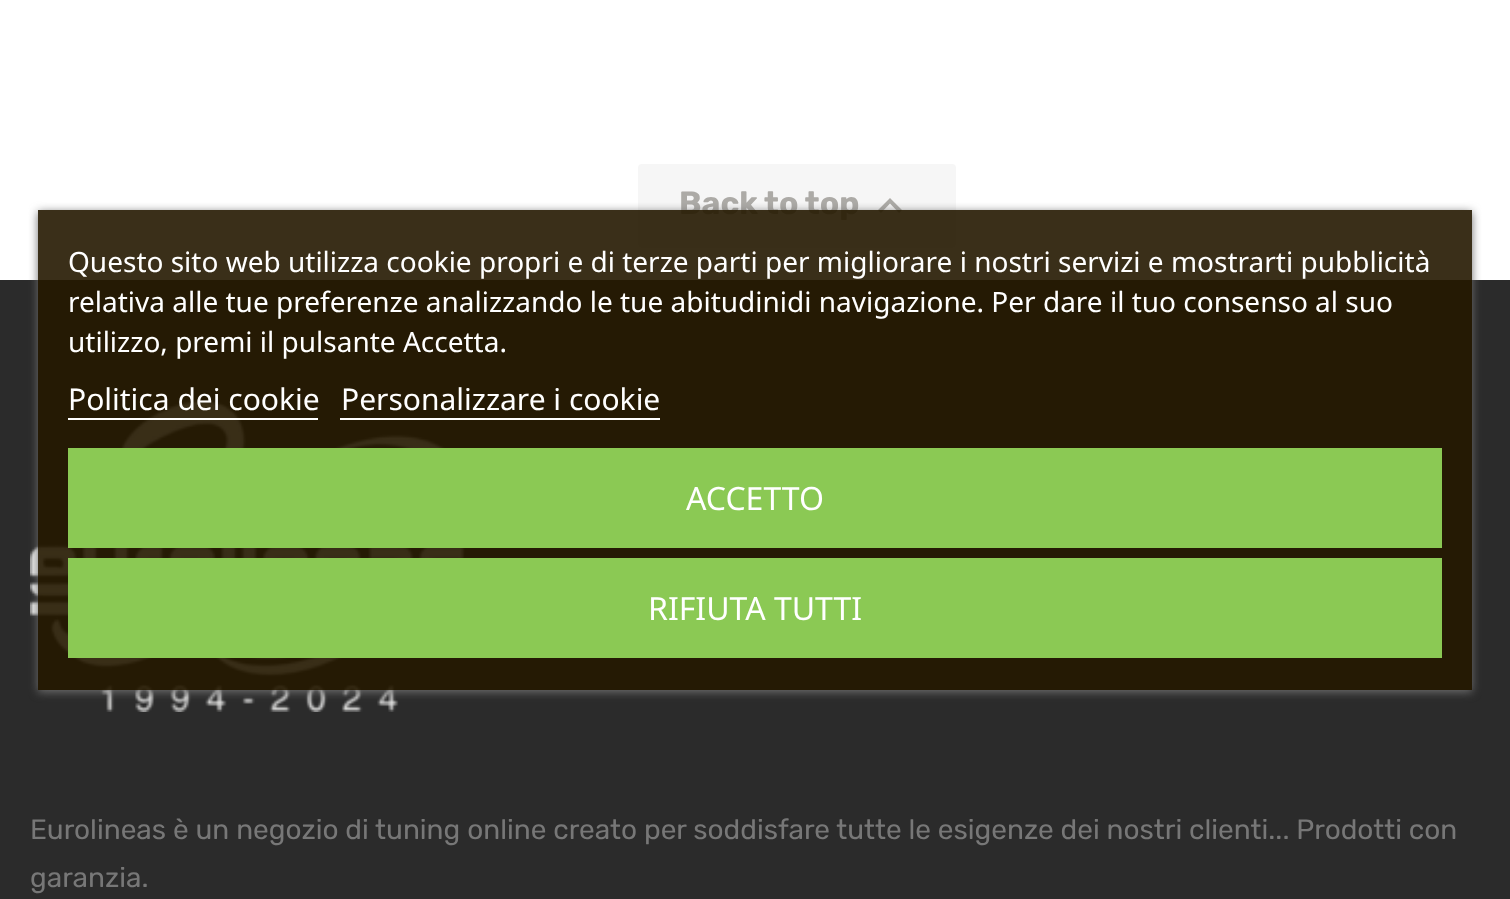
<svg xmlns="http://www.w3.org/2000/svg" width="1510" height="899">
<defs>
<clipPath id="clip1"><path d="M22 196h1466v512h-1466zm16 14h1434v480h-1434z" clip-rule="evenodd"/></clipPath>
</defs>
<rect width="100%" height="100%" fill="#fff"/>
<rect x="638" y="164" width="318" height="84" rx="4" fill="#f6f6f6"/>
<text x="679" y="214" style="font-family:Rubik;font-size:32px;font-weight:bold;fill:#acaaa6">Back to top</text>
<path d="M881 213l-3-3l12-12l12 12l-3 3l-9-9.5z" fill="#acaaa6"/>
<rect y="280" width="1510" height="619" fill="#2b2b2b"/>
<image x="30" y="400" width="436" height="312" href="media/1.png"/>
<g clip-path="url(#clip1)">
<rect x="38" y="212" width="1434" height="480" fill="#707070" filter="blur(5px)"/>
</g>
<rect x="38" y="210" width="1434" height="480" fill="#251800e6"/>
<text x="68" y="272" style="font-family:Noto Sans;font-size:28px;fill:#fff">Questo sito web utilizza cookie propri e di terze parti per migliorare i nostri servizi e mostrarti pubblicità</text>
<text x="68" y="312" style="font-family:Noto Sans;font-size:28px;fill:#fff">relativa alle tue preferenze analizzando le tue abitudinidi navigazione. Per dare il tuo consenso al suo</text>
<text x="68" y="352" style="font-family:Noto Sans;font-size:28px;fill:#fff">utilizzo, premi il pulsante Accetta.</text>
<text x="68" y="410" style="font-family:Noto Sans;font-size:30px;fill:#fff">Politica dei cookie</text>
<rect x="68" y="418" width="250" height="2" fill="#fff"/>
<text x="341" y="410" style="font-family:Noto Sans;font-size:30px;fill:#fff">Personalizzare i cookie</text>
<rect x="340" y="418" width="320" height="2" fill="#fff"/>
<rect x="68" y="448" width="1374" height="100" fill="#8bc954"/>
<text x="686" y="510" style="font-family:Noto Sans;font-size:32px;fill:#fff">ACCETTO</text>
<rect x="68" y="558" width="1374" height="100" fill="#8bc954"/>
<text x="648" y="620" style="font-family:Noto Sans;font-size:32px;fill:#fff">RIFIUTA TUTTI</text>
<text x="30" y="839" style="font-family:Rubik;font-size:28px;fill:#777">Eurolineas è un negozio di tuning online creato per soddisfare tutte le esigenze dei nostri clienti... Prodotti con</text>
<text x="30" y="887" style="font-family:Rubik;font-size:28px;fill:#777">garanzia.</text>
</svg>
